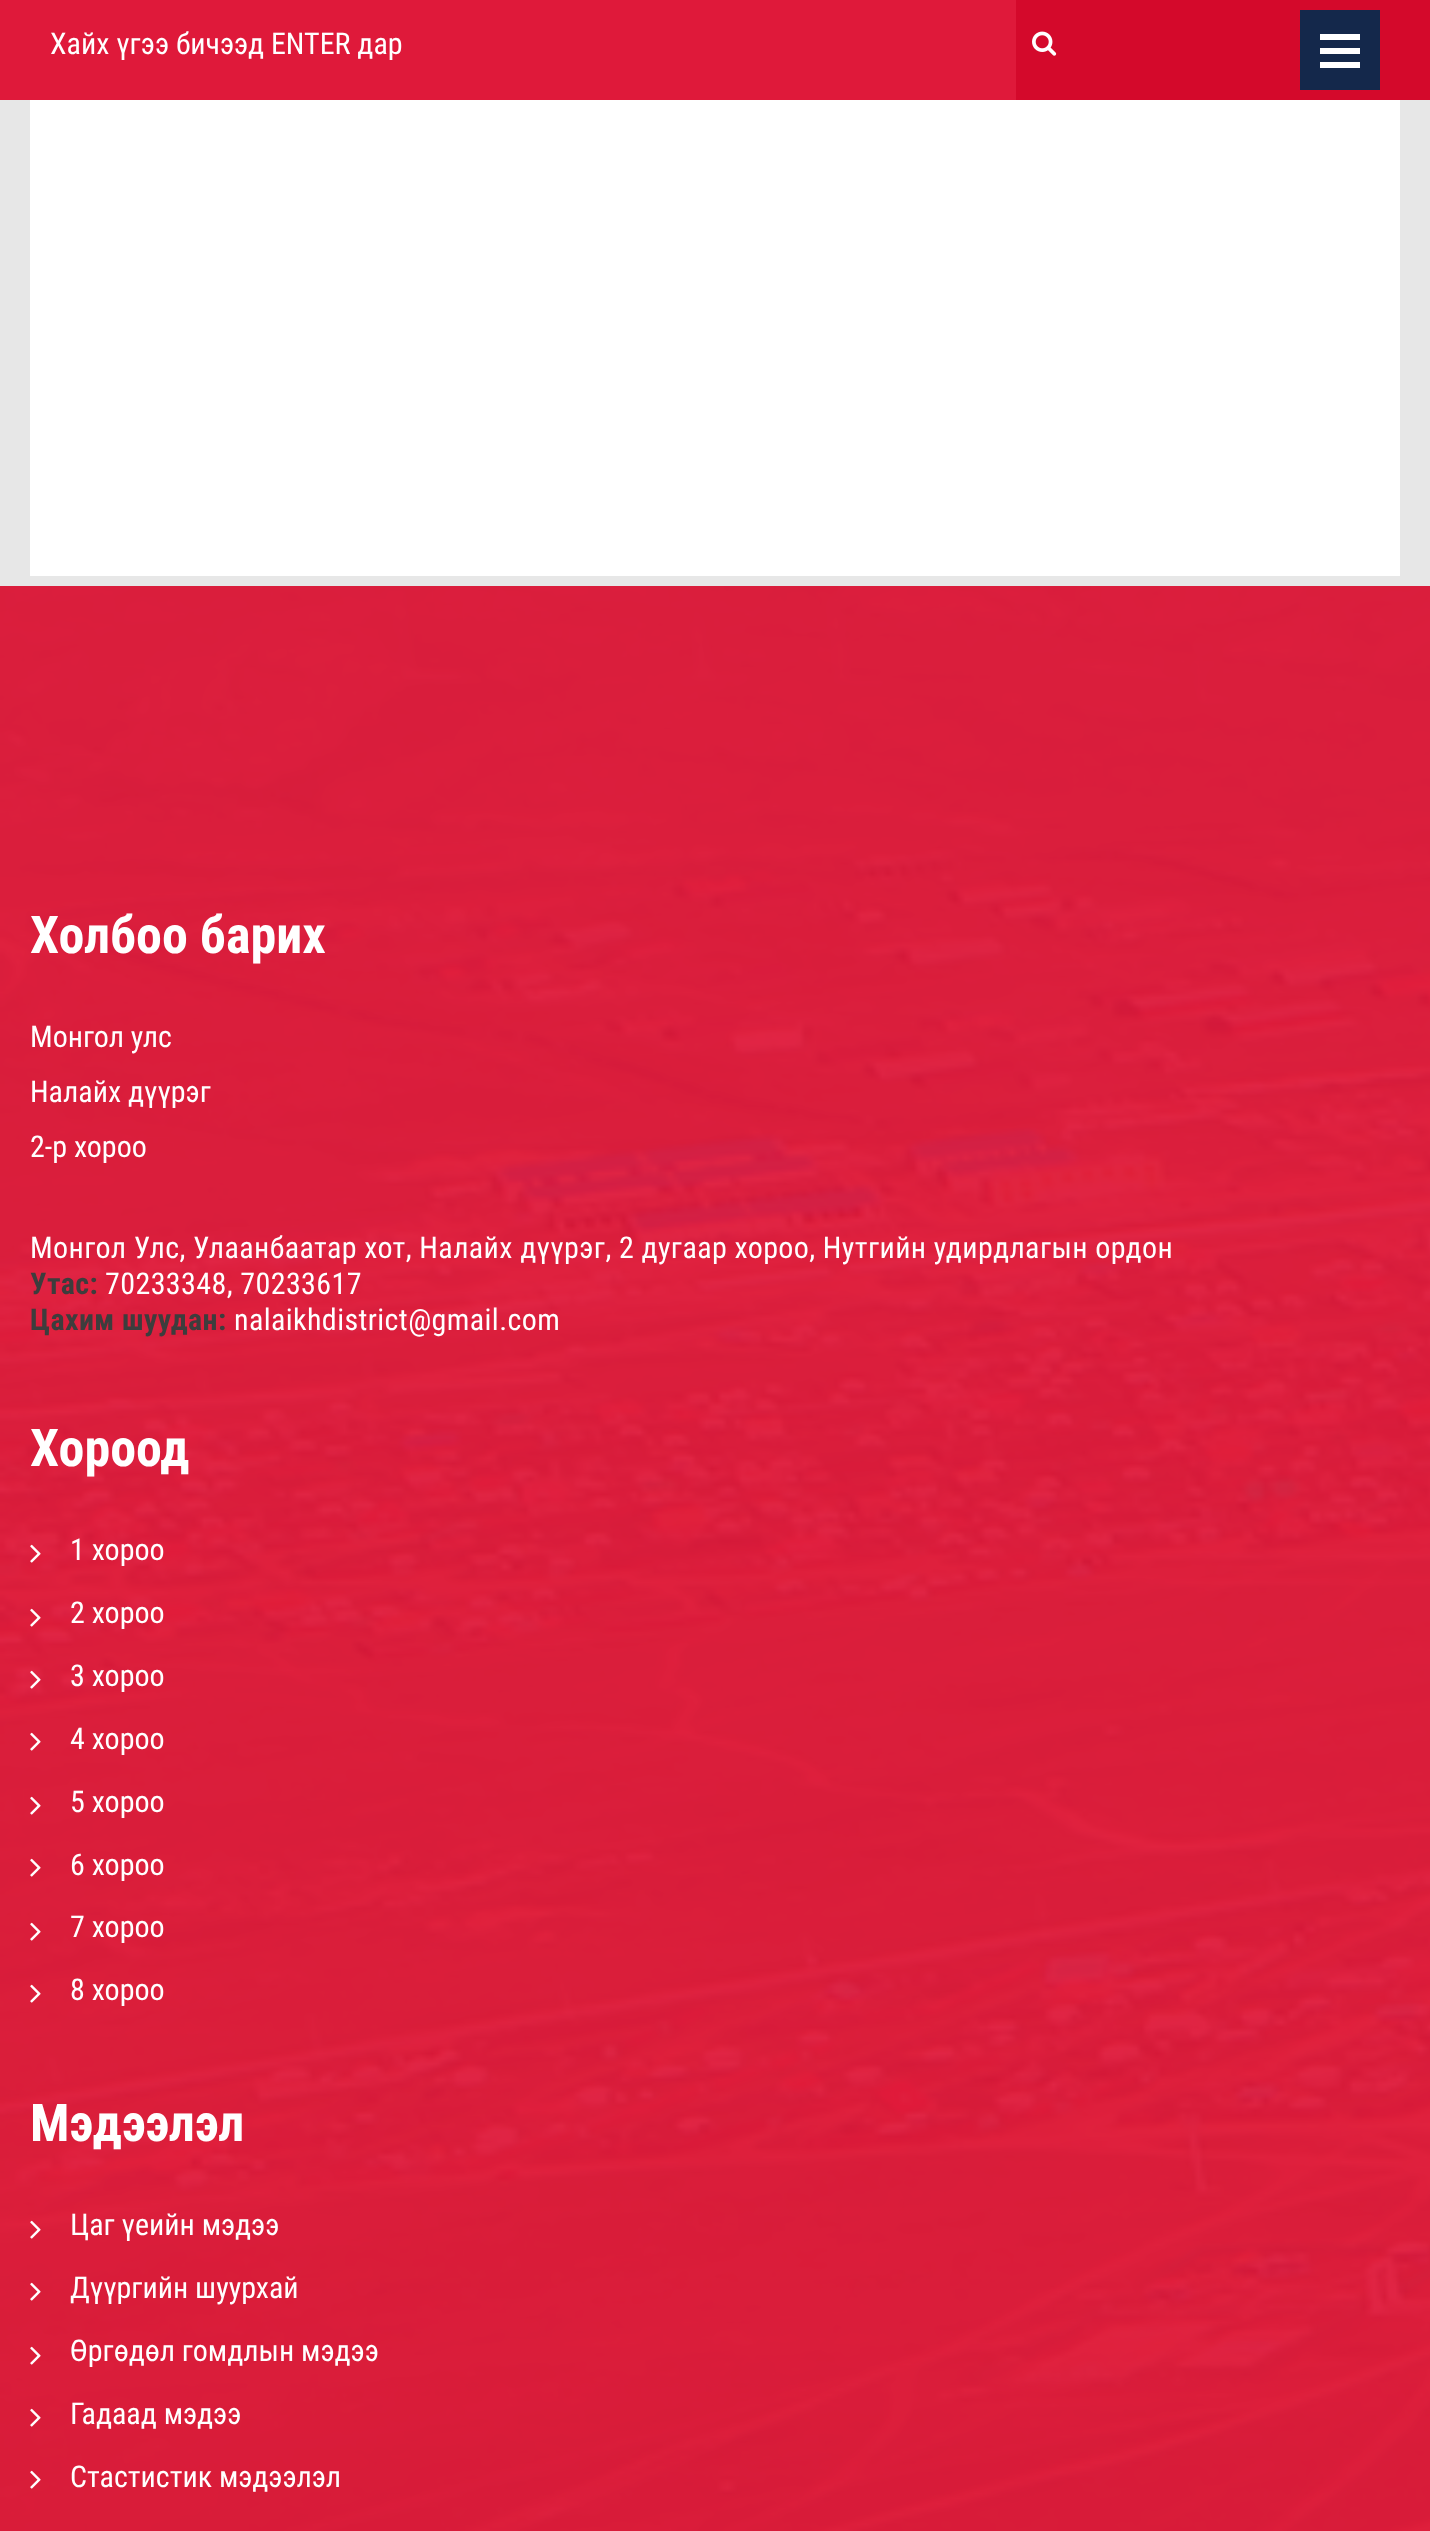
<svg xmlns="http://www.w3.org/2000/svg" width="1430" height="2531">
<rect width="100%" height="100%" fill="#e7e7e7"/>
<rect width="1016" height="100" fill="#df193a"/>
<text x="50" y="54" style="font-family:Roboto Condensed;font-size:30px;fill:#fff">Хайх үгээ бичээд ENTER дар</text>
<rect x="1016" width="414" height="100" fill="#d4092b"/>
<image x="1032" y="31" width="25" height="25" href="media/1.png"/>
<rect x="1300" y="10" width="80" height="80" fill="#14284b"/>
<rect x="1320" y="62" width="40" height="6" fill="#fff"/>
<rect x="1320" y="48" width="40" height="6" fill="#fff"/>
<rect x="1320" y="34" width="40" height="6" fill="#fff"/>
<rect x="30" y="100" width="1370" height="476" fill="#fff"/>
<image x="0" y="586" width="1430" height="1945" href="media/2.png"/>
<text x="30" y="953" style="font-family:Roboto Condensed;font-size:52px;font-weight:bold;fill:#fff">Холбоо барих</text>
<text x="30" y="1047" style="font-family:Roboto Condensed;font-size:30px;fill:#fff">Монгол улс</text>
<text x="30" y="1102" style="font-family:Roboto Condensed;font-size:30px;fill:#fff">Налайх дүүрэг</text>
<text x="30" y="1157" style="font-family:Roboto Condensed;font-size:30px;fill:#fff">2-р хороо</text>
<text x="30" y="1258" style="font-family:Roboto Condensed;font-size:30px;letter-spacing:0.4px;fill:#fff">Монгол Улс, Улаанбаатар хот, Налайх дүүрэг, 2 дугаар хороо, Нутгийн удирдлагын ордон</text>
<text x="30" y="1294" style="font-family:Roboto Condensed;font-size:30px;font-weight:bold;letter-spacing:0.4px;fill:#3d3d3d">Утас:</text>
<text x="105" y="1294" style="font-family:Roboto Condensed;font-size:30px;letter-spacing:0.4px;fill:#fff">70233348, 70233617</text>
<text x="30" y="1330" style="font-family:Roboto Condensed;font-size:30px;font-weight:bold;letter-spacing:0.4px;fill:#3d3d3d">Цахим шуудан:</text>
<text x="234" y="1330" style="font-family:Roboto Condensed;font-size:30px;letter-spacing:0.4px;fill:#fff">nalaikhdistrict@gmail.com</text>
<text x="30" y="1466" style="font-family:Roboto Condensed;font-size:52px;font-weight:bold;fill:#fff">Хороод</text>
<image x="30" y="1544" width="11" height="19" href="media/3.png"/>
<text x="70" y="1560" style="font-family:Roboto Condensed;font-size:30px;fill:#fff">1 хороо</text>
<image x="30" y="1608" width="11" height="19" href="media/4.png"/>
<text x="70" y="1623" style="font-family:Roboto Condensed;font-size:30px;fill:#fff">2 хороо</text>
<image x="30" y="1670" width="11" height="19" href="media/5.png"/>
<text x="70" y="1686" style="font-family:Roboto Condensed;font-size:30px;fill:#fff">3 хороо</text>
<image x="30" y="1732" width="11" height="19" href="media/6.png"/>
<text x="70" y="1749" style="font-family:Roboto Condensed;font-size:30px;fill:#fff">4 хороо</text>
<image x="30" y="1796" width="11" height="19" href="media/7.png"/>
<text x="70" y="1812" style="font-family:Roboto Condensed;font-size:30px;fill:#fff">5 хороо</text>
<image x="30" y="1858" width="11" height="19" href="media/8.png"/>
<text x="70" y="1875" style="font-family:Roboto Condensed;font-size:30px;fill:#fff">6 хороо</text>
<image x="30" y="1922" width="11" height="19" href="media/9.png"/>
<text x="70" y="1937" style="font-family:Roboto Condensed;font-size:30px;fill:#fff">7 хороо</text>
<image x="30" y="1984" width="11" height="19" href="media/10.png"/>
<text x="70" y="2000" style="font-family:Roboto Condensed;font-size:30px;fill:#fff">8 хороо</text>
<text x="30" y="2141" style="font-family:Roboto Condensed;font-size:52px;font-weight:bold;fill:#fff">Мэдээлэл</text>
<image x="30" y="2220" width="11" height="19" href="media/11.png"/>
<text x="70" y="2235" style="font-family:Roboto Condensed;font-size:30px;fill:#fff">Цаг үеийн мэдээ</text>
<image x="30" y="2282" width="11" height="19" href="media/12.png"/>
<text x="70" y="2298" style="font-family:Roboto Condensed;font-size:30px;fill:#fff">Дүүргийн шуурхай</text>
<image x="30" y="2346" width="11" height="19" href="media/13.png"/>
<text x="70" y="2361" style="font-family:Roboto Condensed;font-size:30px;fill:#fff">Өргөдөл гомдлын мэдээ</text>
<image x="30" y="2408" width="11" height="19" href="media/14.png"/>
<text x="70" y="2424" style="font-family:Roboto Condensed;font-size:30px;fill:#fff">Гадаад мэдээ</text>
<image x="30" y="2470" width="11" height="19" href="media/15.png"/>
<text x="70" y="2487" style="font-family:Roboto Condensed;font-size:30px;fill:#fff">Стастистик мэдээлэл</text>
</svg>
